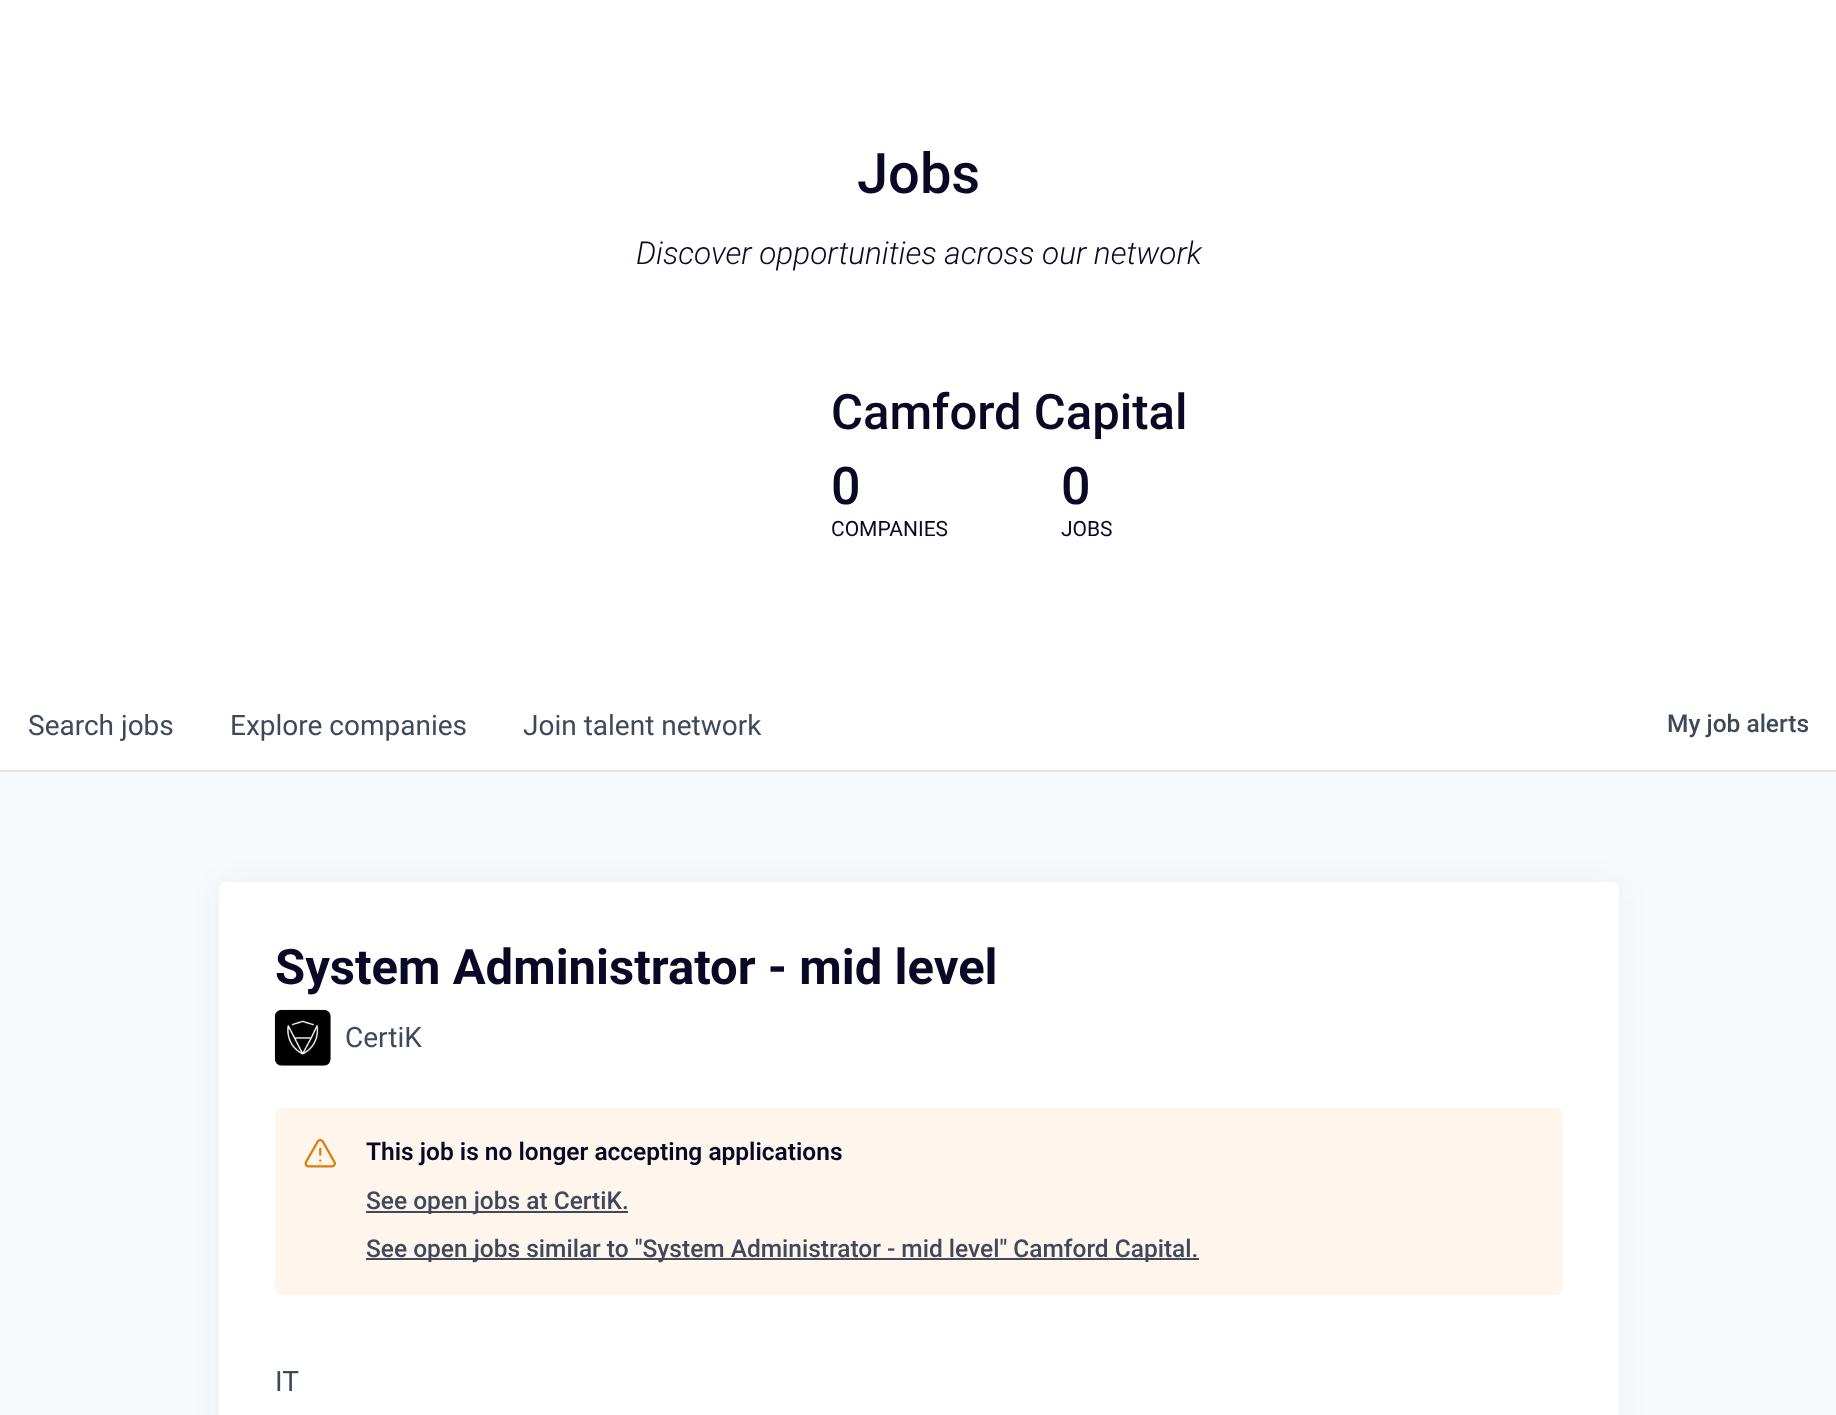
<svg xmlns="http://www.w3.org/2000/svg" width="1836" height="1415">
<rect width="100%" height="100%" fill="#f7fafc"/>
<rect width="1836" height="770" fill="#fff"/>
<text x="857" y="193" style="font-family:Roboto;font-size:56px;font-weight:500;fill:#090925">Jobs</text>
<text x="636" y="264" style="font-family:Roboto;font-size:31.5px;font-weight:300;font-style:italic;fill:#090925">Discover opportunities across our network</text>
<text x="831" y="429" style="font-family:Roboto;font-size:49px;font-weight:500;fill:#090925">Camford Capital</text>
<text x="831" y="504" style="font-family:Roboto;font-size:52px;font-weight:500;fill:#090925">0</text>
<text x="831" y="536" style="font-family:Roboto;font-size:21px;fill:#090925">COMPANIES</text>
<text x="1061" y="504" style="font-family:Roboto;font-size:52px;font-weight:500;fill:#090925">0</text>
<text x="1061" y="536" style="font-family:Roboto;font-size:21px;fill:#090925">JOBS</text>
<path d="M0 770v2h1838v-89v87z" fill="#e5e5e5"/>
<text x="28" y="735" style="font-family:Roboto;font-size:28px;fill:#3f495a">Search jobs</text>
<text x="230" y="735" style="font-family:Roboto;font-size:28px;fill:#3f495a">Explore companies</text>
<text x="523" y="735" style="font-family:Roboto;font-size:28px;fill:#3f495a">Join talent network</text>
<text x="1667" y="732" style="font-family:Roboto;font-size:24.5px;font-weight:500;fill:#3f495a">My job alerts</text>
<rect x="219" y="884" width="1400" height="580" rx="7" fill="#1b24320f" filter="blur(14px)"/>
<rect x="219" y="882" width="1400" height="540" rx="7" fill="#fff"/>
<text x="275" y="984" style="font-family:Roboto;font-size:49px;font-weight:bold;fill:#090925">System Administrator - mid level</text>
<image x="274" y="1009" width="57" height="57" href="media/1.png"/>
<text x="345" y="1047" style="font-family:Roboto;font-size:28px;fill:#3f495a">CertiK</text>
<rect x="275" y="1108" width="1288" height="187" rx="7" fill="#fef5ec"/>
<image x="304" y="1139" width="32" height="29" href="media/2.png"/>
<text x="366" y="1160" style="font-family:Roboto;font-size:24.5px;font-weight:600;fill:#090925">This job is no longer accepting applications</text>
<rect x="366" y="1211" width="255" height="2" fill="#3f495a"/>
<text x="366" y="1209" style="font-family:Roboto;font-size:24.5px;font-weight:500;fill:#3f495a">See open jobs at CertiK.</text>
<rect x="621" y="1211" width="7" height="2" fill="#3f495a"/>
<rect x="366" y="1258" width="833" height="2" fill="#3f495a"/>
<text x="366" y="1257" style="font-family:Roboto;font-size:24.5px;font-weight:500;fill:#3f495a">See open jobs similar to "System Administrator - mid level" Camford Capital.</text>
<text x="275" y="1391" style="font-family:Roboto;font-size:28px;fill:#3f495a">IT</text>
</svg>
